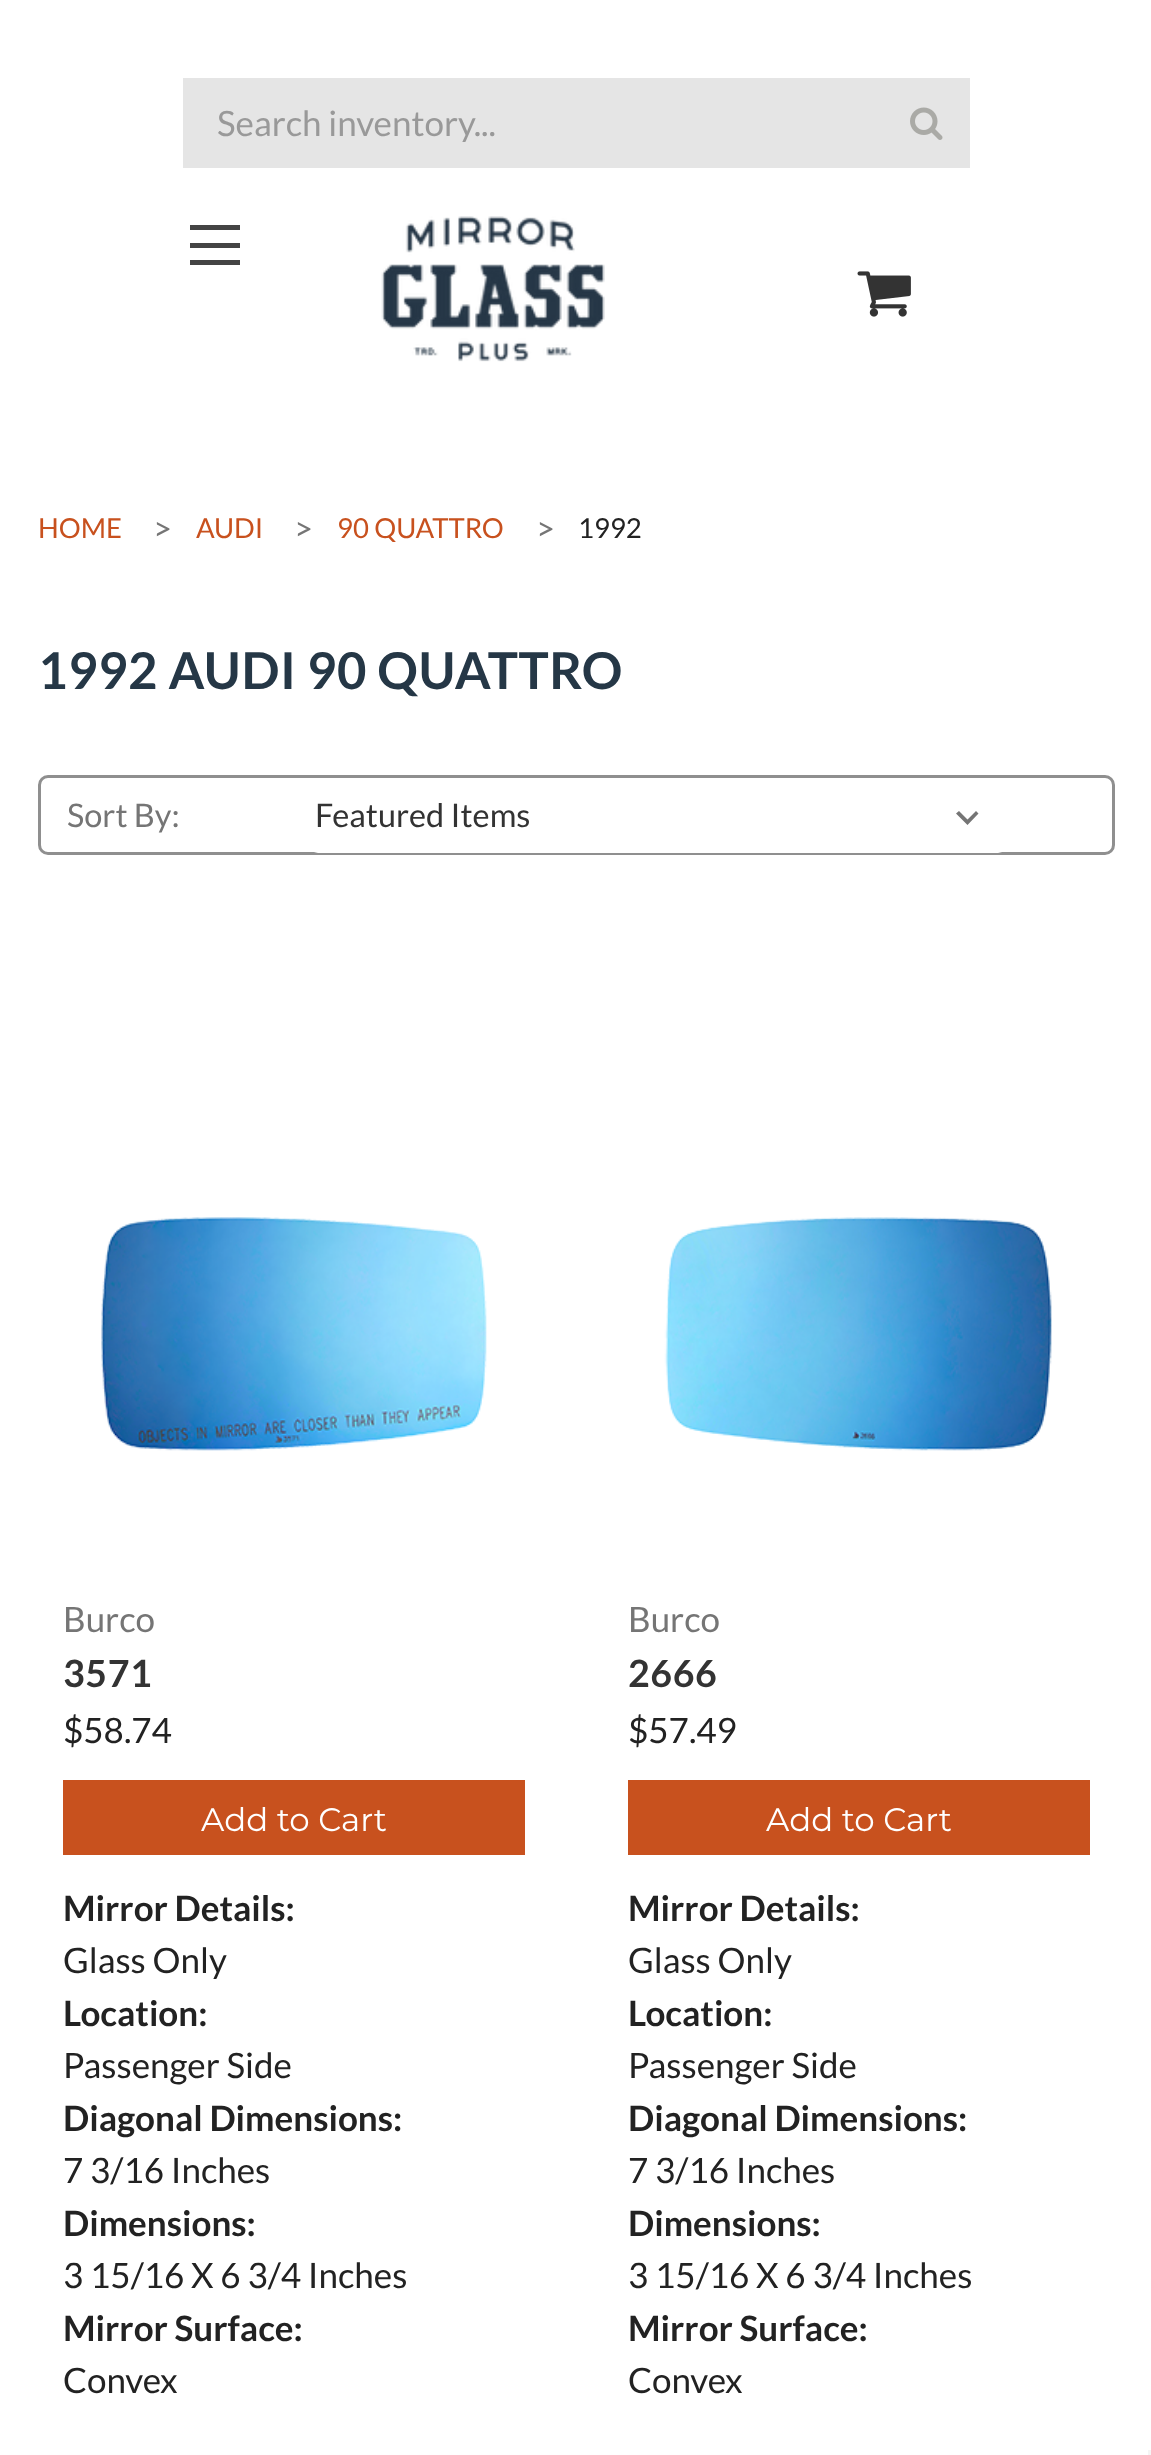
<svg xmlns="http://www.w3.org/2000/svg" width="1151" height="2455">
<rect width="100%" height="100%" fill="#fff"/>
<rect x="183" y="78" width="787" height="90" fill="#e5e5e5"/>
<text x="217" y="136" style="font-family:Lato;font-size:35px;fill:#999">Search inventory...</text>
<image x="910" y="107" width="33" height="33" href="media/1.png"/>
<image x="381" y="216" width="224" height="146" href="media/2.png"/>
<image x="857" y="271" width="54" height="46" href="media/3.png"/>
<rect x="190" y="243" width="50" height="5" fill="#444"/>
<rect x="190" y="225" width="50" height="5" fill="#444"/>
<rect x="190" y="260" width="50" height="5" fill="#444"/>
<text x="38" y="538" style="font-family:Lato;font-size:27.5px;fill:#c8511e">HOME</text>
<text x="153" y="540" style="font-family:Lato;font-size:32.5px;fill:#757575">&gt;</text>
<text x="196" y="538" style="font-family:Lato;font-size:27.5px;fill:#c8511e">AUDI</text>
<text x="294" y="540" style="font-family:Lato;font-size:32.5px;fill:#757575">&gt;</text>
<text x="337" y="538" style="font-family:Lato;font-size:27.5px;fill:#c8511e">90 QUATTRO</text>
<text x="536" y="540" style="font-family:Lato;font-size:32.5px;fill:#757575">&gt;</text>
<text x="578" y="538" style="font-family:Lato;font-size:27.5px;fill:#222">1992</text>
<text x="38" y="689" style="font-family:Lato;font-size:50.75px;font-weight:bold;letter-spacing:0.6px;fill:#253746">1992 AUDI 90 QUATTRO</text>
<rect x="39.5" y="776.5" width="1074" height="77" rx="8.5" fill="none" stroke="#8f8f8f" stroke-width="3"/>
<text x="67" y="827" style="font-family:Lato;font-size:32.5px;fill:#757575">Sort By:</text>
<rect x="308" y="778" width="700" height="75" rx="10" fill="#fff"/>
<path d="M976 811l-8.5 8.5l-8.5-8.5l-3 2.5l11.5 11.5l11-11.5z" fill="#757575"/>
<text x="315" y="827" style="font-family:Lato;font-size:32.5px;fill:#333">Featured Items</text>
<image x="101" y="1217" width="386" height="234" href="media/4.png"/>
<text x="63" y="1632" style="font-family:Lato;font-size:35px;fill:#757575">Burco</text>
<text x="63" y="1687" style="font-family:Lato;font-size:37.5px;font-weight:bold;letter-spacing:0.6px;fill:#333">3571</text>
<text x="63" y="1743" style="font-family:Lato;font-size:35px;fill:#222">$58.74</text>
<rect x="63" y="1780" width="462" height="75" fill="#c8511e"/>
<text x="201" y="1831" style="font-family:Montserrat;font-size:32.5px;fill:#fff">Add to Cart</text>
<text x="63" y="1921" style="font-family:Lato;font-size:35px;font-weight:bold;fill:#222">Mirror Details:</text>
<text x="63" y="1973" style="font-family:Lato;font-size:35px;fill:#222">Glass Only</text>
<text x="63" y="2026" style="font-family:Lato;font-size:35px;font-weight:bold;fill:#222">Location:</text>
<text x="63" y="2078" style="font-family:Lato;font-size:35px;fill:#222">Passenger Side</text>
<text x="63" y="2131" style="font-family:Lato;font-size:35px;font-weight:bold;fill:#222">Diagonal Dimensions:</text>
<text x="63" y="2183" style="font-family:Lato;font-size:35px;fill:#222">7 3/16 Inches</text>
<text x="63" y="2236" style="font-family:Lato;font-size:35px;font-weight:bold;fill:#222">Dimensions:</text>
<text x="63" y="2288" style="font-family:Lato;font-size:35px;fill:#222">3 15/16 X 6 3/4 Inches</text>
<text x="63" y="2341" style="font-family:Lato;font-size:35px;font-weight:bold;fill:#222">Mirror Surface:</text>
<text x="63" y="2393" style="font-family:Lato;font-size:35px;fill:#222">Convex</text>
<image x="664" y="1217" width="388" height="234" href="media/5.png"/>
<text x="628" y="1632" style="font-family:Lato;font-size:35px;fill:#757575">Burco</text>
<text x="628" y="1687" style="font-family:Lato;font-size:37.5px;font-weight:bold;letter-spacing:0.6px;fill:#333">2666</text>
<text x="628" y="1743" style="font-family:Lato;font-size:35px;fill:#222">$57.49</text>
<rect x="628" y="1780" width="462" height="75" fill="#c8511e"/>
<text x="766" y="1831" style="font-family:Montserrat;font-size:32.5px;fill:#fff">Add to Cart</text>
<text x="628" y="1921" style="font-family:Lato;font-size:35px;font-weight:bold;fill:#222">Mirror Details:</text>
<text x="628" y="1973" style="font-family:Lato;font-size:35px;fill:#222">Glass Only</text>
<text x="628" y="2026" style="font-family:Lato;font-size:35px;font-weight:bold;fill:#222">Location:</text>
<text x="628" y="2078" style="font-family:Lato;font-size:35px;fill:#222">Passenger Side</text>
<text x="628" y="2131" style="font-family:Lato;font-size:35px;font-weight:bold;fill:#222">Diagonal Dimensions:</text>
<text x="628" y="2183" style="font-family:Lato;font-size:35px;fill:#222">7 3/16 Inches</text>
<text x="628" y="2236" style="font-family:Lato;font-size:35px;font-weight:bold;fill:#222">Dimensions:</text>
<text x="628" y="2288" style="font-family:Lato;font-size:35px;fill:#222">3 15/16 X 6 3/4 Inches</text>
<text x="628" y="2341" style="font-family:Lato;font-size:35px;font-weight:bold;fill:#222">Mirror Surface:</text>
<text x="628" y="2393" style="font-family:Lato;font-size:35px;fill:#222">Convex</text>
<rect x="1148" y="2450" width="3" height="5" fill="#f5f5f5"/>
</svg>
